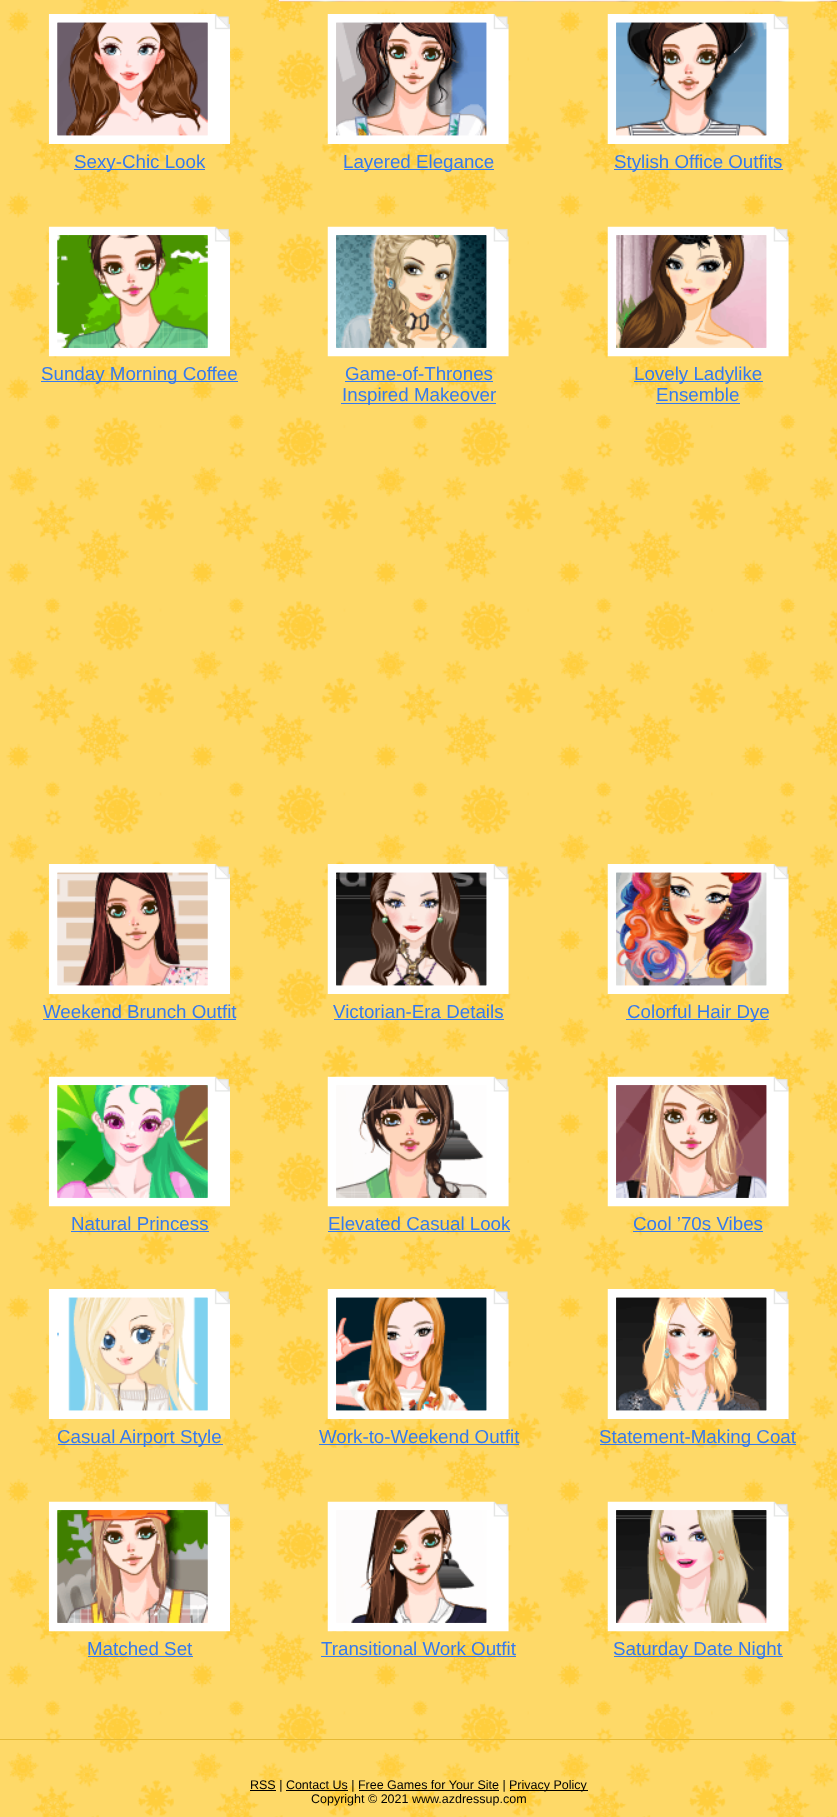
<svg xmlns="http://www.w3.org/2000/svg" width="837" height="1817">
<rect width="100%" height="100%" fill="#fed968"/>
<image x="6" y="0" width="831" height="1817" href="media/1.png"/>
<image x="278" y="0" width="559" height="2" href="media/2.png"/>
<rect x="279" width="558" height="1" fill="#ffffffcc"/>
<image x="48" y="14" width="182" height="130" href="media/3.png"/>
<image x="57" y="22" width="151" height="114" href="media/4.png"/>
<rect x="74" y="169" width="131" height="1" fill="#367aee"/>
<text x="74" y="168" style="font-family:Liberation Sans;font-size:18.75px;fill:#367aee">Sexy-Chic Look</text>
<image x="327" y="14" width="182" height="130" href="media/5.png"/>
<image x="336" y="22" width="151" height="114" href="media/6.png"/>
<rect x="344" y="169" width="150" height="1" fill="#367aee"/>
<text x="343" y="168" style="font-family:Liberation Sans;font-size:18.75px;fill:#367aee">Layered Elegance</text>
<image x="607" y="14" width="182" height="130" href="media/7.png"/>
<image x="616" y="22" width="151" height="114" href="media/8.png"/>
<rect x="614" y="169" width="169" height="1" fill="#367aee"/>
<text x="614" y="168" style="font-family:Liberation Sans;font-size:18.75px;fill:#367aee">Stylish Office Outfits</text>
<image x="48" y="226" width="182" height="131" href="media/9.png"/>
<image x="57" y="235" width="151" height="113" href="media/10.png"/>
<rect x="41" y="381" width="197" height="1" fill="#367aee"/>
<text x="41" y="380" style="font-family:Liberation Sans;font-size:18.75px;fill:#367aee">Sunday Morning Coffee</text>
<image x="327" y="226" width="182" height="131" href="media/11.png"/>
<image x="336" y="235" width="151" height="113" href="media/12.png"/>
<text x="345" y="380" style="font-family:Liberation Sans;font-size:18.75px;fill:#367aee">Game-of-Thrones</text>
<rect x="345" y="381" width="148" height="1" fill="#367aee"/>
<rect x="341" y="403" width="155" height="1" fill="#367aee"/>
<text x="342" y="401" style="font-family:Liberation Sans;font-size:18.75px;fill:#367aee">Inspired Makeover</text>
<image x="607" y="226" width="182" height="131" href="media/13.png"/>
<image x="616" y="235" width="151" height="113" href="media/14.png"/>
<rect x="634" y="381" width="129" height="1" fill="#367aee"/>
<text x="634" y="380" style="font-family:Liberation Sans;font-size:18.75px;fill:#367aee">Lovely Ladylike</text>
<text x="656" y="401" style="font-family:Liberation Sans;font-size:18.75px;fill:#367aee">Ensemble</text>
<rect x="656" y="403" width="84" height="1" fill="#367aee"/>
<image x="48" y="864" width="182" height="130" href="media/15.png"/>
<image x="57" y="872" width="151" height="114" href="media/16.png"/>
<text x="43" y="1018" style="font-family:Liberation Sans;font-size:18.75px;fill:#367aee">Weekend Brunch Outfit</text>
<rect x="43" y="1019" width="193" height="1" fill="#367aee"/>
<image x="327" y="864" width="182" height="130" href="media/17.png"/>
<image x="336" y="872" width="151" height="114" href="media/18.png"/>
<text x="333" y="1018" style="font-family:Liberation Sans;font-size:18.75px;fill:#367aee">Victorian-Era Details</text>
<rect x="334" y="1019" width="170" height="1" fill="#367aee"/>
<image x="607" y="864" width="182" height="130" href="media/19.png"/>
<image x="616" y="872" width="151" height="114" href="media/20.png"/>
<rect x="626" y="1019" width="143" height="1" fill="#367aee"/>
<text x="627" y="1018" style="font-family:Liberation Sans;font-size:18.75px;fill:#367aee">Colorful Hair Dye</text>
<image x="48" y="1076" width="182" height="131" href="media/21.png"/>
<image x="57" y="1085" width="151" height="113" href="media/22.png"/>
<text x="71" y="1230" style="font-family:Liberation Sans;font-size:18.75px;fill:#367aee">Natural Princess</text>
<rect x="71" y="1231" width="138" height="1" fill="#367aee"/>
<image x="327" y="1076" width="182" height="131" href="media/23.png"/>
<image x="336" y="1085" width="151" height="113" href="media/24.png"/>
<text x="328" y="1230" style="font-family:Liberation Sans;font-size:18.75px;fill:#367aee">Elevated Casual Look</text>
<rect x="328" y="1231" width="182" height="1" fill="#367aee"/>
<image x="607" y="1076" width="182" height="131" href="media/25.png"/>
<image x="616" y="1085" width="151" height="113" href="media/26.png"/>
<text x="633" y="1230" style="font-family:Liberation Sans;font-size:18.75px;fill:#367aee">Cool ’70s Vibes</text>
<rect x="633" y="1231" width="130" height="1" fill="#367aee"/>
<image x="48" y="1289" width="182" height="130" href="media/27.png"/>
<image x="57" y="1297" width="151" height="114" href="media/28.png"/>
<rect x="58" y="1444" width="165" height="1" fill="#367aee"/>
<text x="57" y="1443" style="font-family:Liberation Sans;font-size:18.75px;fill:#367aee">Casual Airport Style</text>
<image x="327" y="1289" width="182" height="130" href="media/29.png"/>
<image x="336" y="1297" width="151" height="114" href="media/30.png"/>
<text x="319" y="1443" style="font-family:Liberation Sans;font-size:18.75px;fill:#367aee">Work-to-Weekend Outfit</text>
<rect x="319" y="1444" width="200" height="1" fill="#367aee"/>
<image x="607" y="1289" width="182" height="130" href="media/31.png"/>
<image x="616" y="1297" width="151" height="114" href="media/32.png"/>
<rect x="600" y="1444" width="196" height="1" fill="#367aee"/>
<text x="599" y="1443" style="font-family:Liberation Sans;font-size:18.75px;fill:#367aee">Statement-Making Coat</text>
<image x="48" y="1501" width="182" height="131" href="media/33.png"/>
<image x="57" y="1510" width="151" height="113" href="media/34.png"/>
<text x="87" y="1655" style="font-family:Liberation Sans;font-size:18.75px;fill:#367aee">Matched Set</text>
<rect x="88" y="1656" width="105" height="1" fill="#367aee"/>
<image x="327" y="1501" width="182" height="131" href="media/35.png"/>
<image x="351" y="1510" width="136" height="113" href="media/36.png"/>
<text x="321" y="1655" style="font-family:Liberation Sans;font-size:18.75px;fill:#367aee">Transitional Work Outfit</text>
<rect x="321" y="1656" width="195" height="1" fill="#367aee"/>
<image x="607" y="1501" width="182" height="131" href="media/37.png"/>
<image x="616" y="1510" width="151" height="113" href="media/38.png"/>
<rect x="614" y="1656" width="169" height="1" fill="#367aee"/>
<text x="613" y="1655" style="font-family:Liberation Sans;font-size:18.75px;fill:#367aee">Saturday Date Night</text>
<rect y="1739" width="837" height="1" fill="#e5b935"/>
<rect x="250" y="1790" width="26" height="1" fill="#000"/>
<text x="250" y="1789" style="font-family:Liberation Sans;font-size:12.5px;fill:#000">RSS | Contact Us | Free Games for Your Site |</text>
<rect x="510" y="1790" width="78" height="1" fill="#000"/>
<text x="509" y="1789" style="font-family:Liberation Sans;font-size:12.5px;fill:#000">Privacy Policy</text>
<rect x="286" y="1790" width="62" height="1" fill="#000"/>
<rect x="359" y="1790" width="140" height="1" fill="#000"/>
<text x="311" y="1803" style="font-family:Liberation Sans;font-size:12.5px;fill:#000">Copyright © 2021 www.azdressup.com</text>
</svg>
